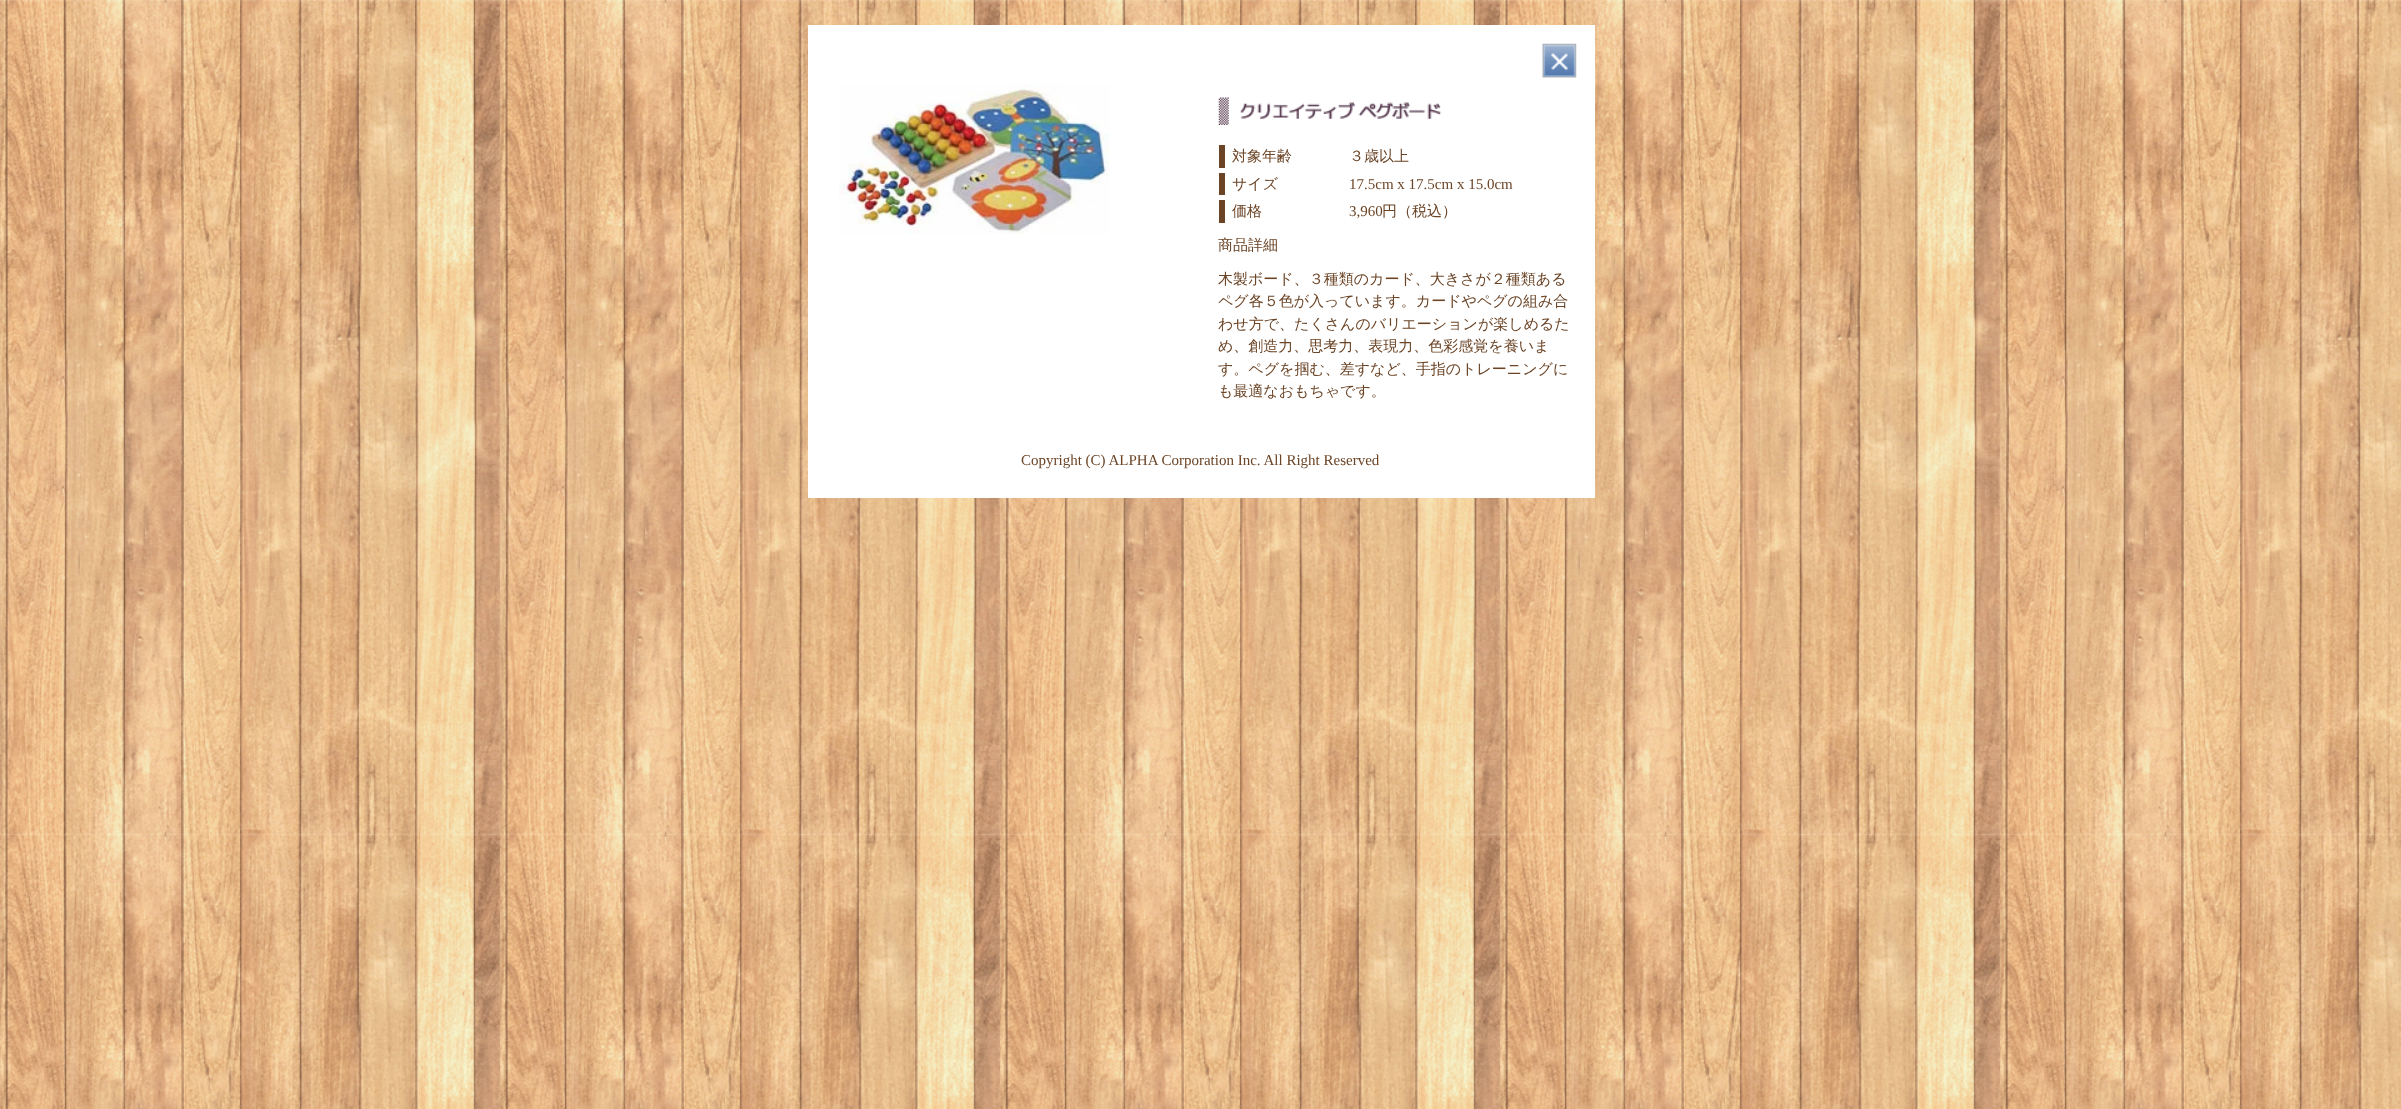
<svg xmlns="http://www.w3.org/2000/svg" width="2401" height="1109">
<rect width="100%" height="100%" fill="#fff"/>
<image x="0" y="0" width="2401" height="1109" href="media/1.png"/>
<rect x="808" y="25" width="787" height="473" fill="#fff"/>
<image x="1542" y="43" width="35" height="35" href="media/2.png"/>
<image x="839" y="84" width="271" height="150" href="media/3.png"/>
<image x="1218" y="97" width="224" height="28" href="media/4.png"/>
<rect x="1219" y="145" width="6" height="23" fill="#6b4426"/>
<text x="1232" y="161" style="font-family:WenQuanYi Zen Hei;font-size:15px;font-weight:500;fill:#6b4426">対象年齢</text>
<text x="1349" y="161" style="font-family:WenQuanYi Zen Hei;font-size:15px;font-weight:500;fill:#6b4426">３歳以上</text>
<rect x="1219" y="173" width="6" height="22" fill="#6b4426"/>
<text x="1232" y="189" style="font-family:WenQuanYi Zen Hei;font-size:15px;font-weight:500;fill:#6b4426">サイズ</text>
<text x="1349" y="189" style="font-family:Liberation Serif;font-size:15px;fill:#6b4426">17.5cm x 17.5cm x 15.0cm</text>
<rect x="1219" y="200" width="6" height="23" fill="#6b4426"/>
<text x="1232" y="216" style="font-family:WenQuanYi Zen Hei;font-size:15px;font-weight:500;fill:#6b4426">価格</text>
<text x="1349" y="216" style="font-family:Liberation Serif;font-size:15px;fill:#6b4426">3,960</text>
<text x="1382" y="216" style="font-family:WenQuanYi Zen Hei;font-size:15px;font-weight:500;fill:#6b4426">円（税込）</text>
<text x="1218" y="250" style="font-family:WenQuanYi Zen Hei;font-size:15px;font-weight:500;fill:#6b4426">商品詳細</text>
<text x="1218" y="284" style="font-family:WenQuanYi Zen Hei;font-size:15px;font-weight:500;fill:#6b4426">木製ボード、３種類のカード、大きさが２種類ある</text>
<text x="1218" y="306" style="font-family:WenQuanYi Zen Hei;font-size:15px;font-weight:500;fill:#6b4426">ペグ各５色が入っています。カードやペグの組み合</text>
<text x="1218" y="329" style="font-family:WenQuanYi Zen Hei;font-size:15px;font-weight:500;fill:#6b4426">わせ方で、たくさんのバリエーションが楽しめるた</text>
<text x="1218" y="351" style="font-family:WenQuanYi Zen Hei;font-size:15px;font-weight:500;fill:#6b4426">め、創造力、思考力、表現力、色彩感覚を養いま</text>
<text x="1218" y="374" style="font-family:WenQuanYi Zen Hei;font-size:15px;font-weight:500;fill:#6b4426">す。ペグを掴む、差すなど、手指のトレーニングに</text>
<text x="1218" y="396" style="font-family:WenQuanYi Zen Hei;font-size:15px;font-weight:500;fill:#6b4426">も最適なおもちゃです。</text>
<text x="1021" y="465" style="font-family:Liberation Serif;font-size:15px;fill:#6b4426">Copyright (C) ALPHA Corporation Inc. All Right Reserved</text>
</svg>
